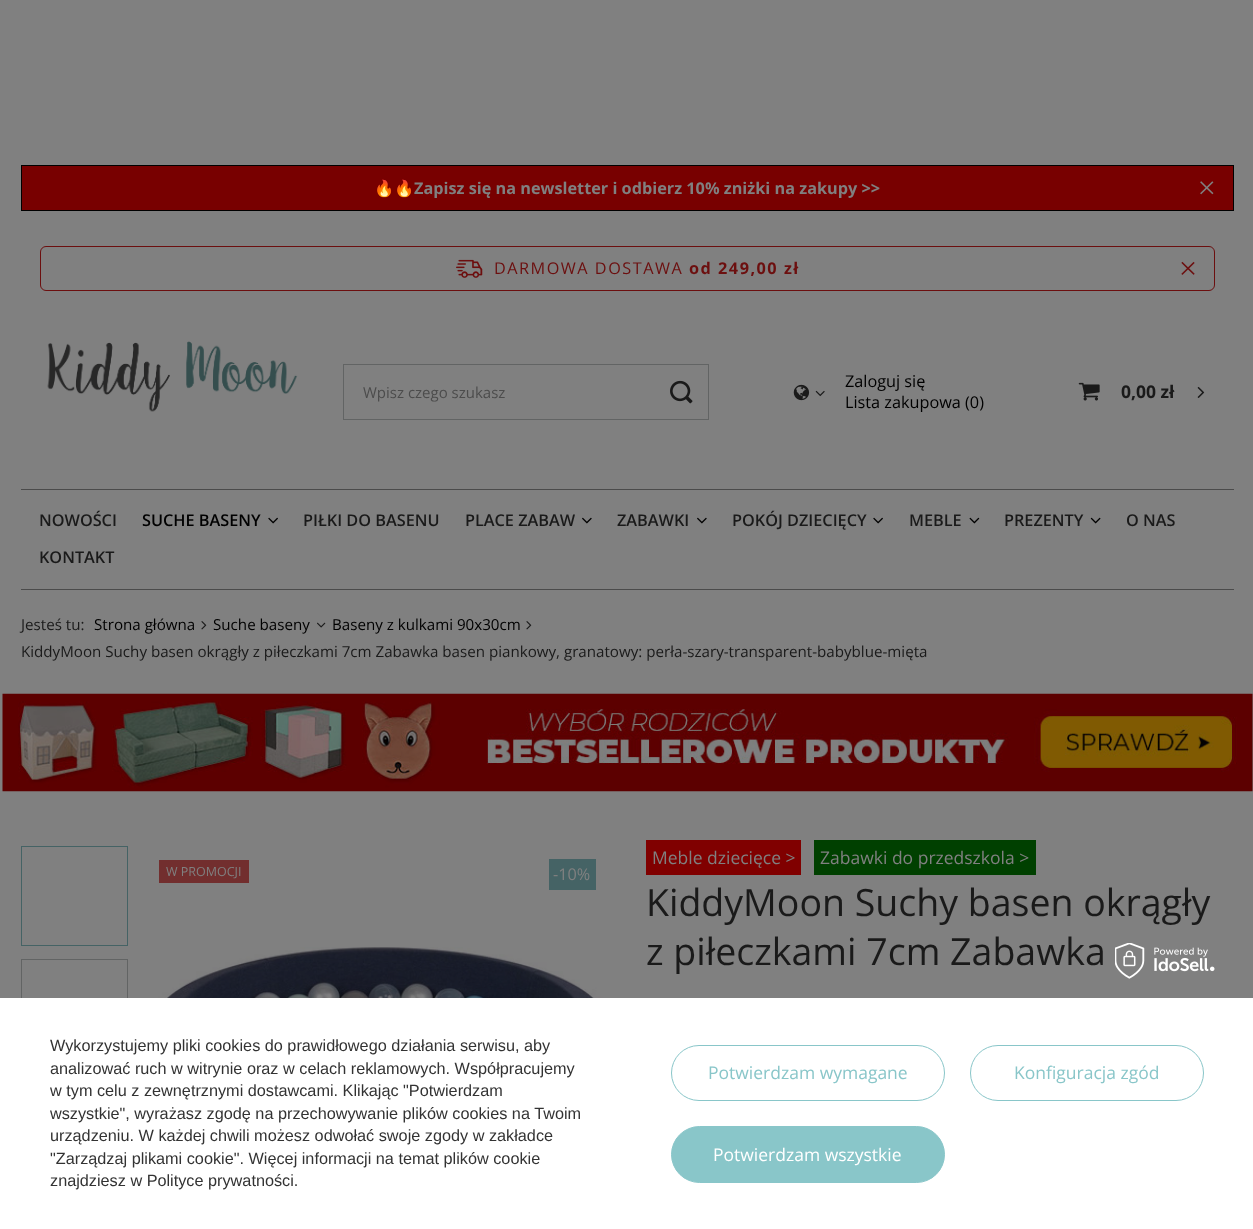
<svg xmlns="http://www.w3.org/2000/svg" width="1253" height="1229">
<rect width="100%" height="100%" fill="#808080"/>
<rect x="21.5" y="165.5" width="1212" height="45" fill="#780000" stroke="#000"/>
<text x="374" y="194" style="font-family:Noto Color Emoji;font-size:16.25px;font-weight:bold;fill:#808080">🔥🔥</text>
<text x="414" y="194" style="font-family:Open Sans;font-size:16.25px;font-weight:bold;fill:#808080">Zapisz się na newsletter i odbierz 10% zniżki na zakupy &gt;&gt;</text>
<image x="1200" y="181" width="14" height="14" href="media/1.png"/>
<rect x="40.5" y="246.5" width="1174" height="44" rx="5.5" fill="none" stroke="#6c0f0f"/>
<image x="456" y="259" width="27" height="19" href="media/2.png"/>
<text x="494" y="274" style="font-family:Open Sans;font-size:16.25px;letter-spacing:1.5px;fill:#6c0f0f">DARMOWA DOSTAWA</text>
<text x="689" y="274" style="font-family:Open Sans;font-size:16.25px;font-weight:bold;letter-spacing:1.5px;fill:#6c0f0f">od 249,00 zł</text>
<image x="1181" y="261" width="14" height="14" href="media/3.png"/>
<image x="47" y="341" width="251" height="71" href="media/4.png"/>
<rect x="343.5" y="364.5" width="365" height="55" fill="none" stroke="#626464"/>
<text x="363" y="398" style="font-family:Open Sans;font-size:15px;fill:#4c4c4c">Wpisz czego szukasz</text>
<image x="670" y="380" width="23" height="24" href="media/5.png"/>
<image x="793" y="384" width="17" height="17" href="media/6.png"/>
<image x="815" y="390" width="10" height="7" href="media/7.png"/>
<text x="845" y="387" style="font-family:Open Sans;font-size:16.25px;fill:#000">Zaloguj się</text>
<text x="845" y="408" style="font-family:Open Sans;font-size:16.25px;fill:#000">Lista zakupowa (0)</text>
<image x="1078" y="382" width="22" height="19" href="media/8.png"/>
<text x="1121" y="398" style="font-family:Open Sans;font-size:17.5px;font-weight:bold;fill:#1a1a1a">0,00 zł</text>
<image x="1197" y="386" width="8" height="12" href="media/9.png"/>
<rect x="21" y="489" width="1213" height="1" fill="#4b4b4b"/>
<rect x="21" y="589" width="1213" height="1" fill="#4b4b4b"/>
<text x="39" y="526" style="font-family:Open Sans;font-size:16.25px;font-weight:600;fill:#1a1a1a">NOWOŚCI</text>
<text x="142" y="526" style="font-family:Open Sans;font-size:16.25px;font-weight:600;fill:#000">SUCHE BASENY</text>
<image x="268" y="517" width="10" height="7" href="media/10.png"/>
<text x="303" y="526" style="font-family:Open Sans;font-size:16.25px;font-weight:600;fill:#1a1a1a">PIŁKI DO BASENU</text>
<text x="465" y="526" style="font-family:Open Sans;font-size:16.25px;font-weight:600;fill:#1a1a1a">PLACE ZABAW</text>
<image x="582" y="517" width="10" height="7" href="media/11.png"/>
<text x="617" y="526" style="font-family:Open Sans;font-size:16.25px;font-weight:600;fill:#1a1a1a">ZABAWKI</text>
<image x="697" y="517" width="10" height="7" href="media/11.png"/>
<text x="732" y="526" style="font-family:Open Sans;font-size:16.25px;font-weight:600;fill:#1a1a1a">POKÓJ DZIECIĘCY</text>
<image x="873" y="517" width="10" height="7" href="media/10.png"/>
<text x="909" y="526" style="font-family:Open Sans;font-size:16.25px;font-weight:600;fill:#1a1a1a">MEBLE</text>
<image x="969" y="517" width="11" height="7" href="media/12.png"/>
<text x="1004" y="526" style="font-family:Open Sans;font-size:16.25px;font-weight:600;fill:#1a1a1a">PREZENTY</text>
<image x="1090" y="517" width="11" height="7" href="media/13.png"/>
<text x="1126" y="526" style="font-family:Open Sans;font-size:16.25px;font-weight:600;fill:#1a1a1a">O NAS</text>
<text x="39" y="563" style="font-family:Open Sans;font-size:16.25px;font-weight:600;fill:#1a1a1a">KONTAKT</text>
<text x="21" y="630" style="font-family:Open Sans;font-size:15.15px;fill:#1a1a1a">Jesteś tu:</text>
<text x="94" y="630" style="font-family:Open Sans;font-size:15.15px;fill:#000">Strona główna</text>
<image x="201" y="621" width="6" height="9" href="media/14.png"/>
<text x="213" y="630" style="font-family:Open Sans;font-size:15.15px;fill:#000">Suche baseny</text>
<image x="317" y="622" width="9" height="6" href="media/15.png"/>
<text x="332" y="630" style="font-family:Open Sans;font-size:15.15px;fill:#000">Baseny z kulkami 90x30cm</text>
<image x="526" y="621" width="6" height="9" href="media/14.png"/>
<text x="21" y="657" style="font-family:Open Sans;font-size:15.15px;fill:#1a1a1a">KiddyMoon Suchy basen okrągły z piłeczkami 7cm Zabawka basen piankowy, granatowy: perła-szary-transparent-babyblue-mięta</text>
<image x="2" y="693" width="1251" height="99" href="media/16.png"/>
<rect x="21.5" y="846.5" width="106" height="99" fill="none" stroke="#456365"/>
<rect x="21.5" y="959.5" width="106" height="99" fill="none" stroke="#626464"/>
<rect x="159" y="860" width="90" height="23" fill="#722e2e"/>
<text x="166" y="876" style="font-family:Open Sans;font-size:12.5px;fill:#808080">W PROMOCJI</text>
<image x="152" y="947" width="457" height="51" href="media/17.png"/>
<rect x="549" y="859" width="47" height="31" fill="#456365"/>
<text x="553" y="880" style="font-family:Open Sans;font-size:16.25px;fill:#808080">-10%</text>
<rect x="646" y="840" width="155" height="35" fill="#800000"/>
<text x="652" y="864" style="font-family:Open Sans;font-size:17.5px;fill:#808080">Meble dziecięce &gt;</text>
<rect x="814" y="840" width="222" height="35" fill="#004000"/>
<text x="820" y="864" style="font-family:Open Sans;font-size:17.5px;fill:#808080">Zabawki do przedszkola &gt;</text>
<text x="646" y="916" style="font-family:Open Sans;font-size:37.5px;fill:#1a1a1a">KiddyMoon Suchy basen okrągły</text>
<text x="646" y="965" style="font-family:Open Sans;font-size:37.5px;fill:#1a1a1a">z piłeczkami 7cm Zabawka</text>
<rect y="998" width="1253" height="231" fill="#fff"/>
<image x="1115" y="943" width="100" height="36" href="media/18.png"/>
<text x="50" y="1051" style="font-family:Liberation Sans;font-size:16.25px;fill:#333">Wykorzystujemy pliki cookies do prawidłowego działania serwisu, aby</text>
<text x="50" y="1074" style="font-family:Liberation Sans;font-size:16.25px;fill:#333">analizować ruch w witrynie oraz w celach reklamowych. Współpracujemy</text>
<text x="50" y="1096" style="font-family:Liberation Sans;font-size:16.25px;fill:#333">w tym celu z zewnętrznymi dostawcami. Klikając "Potwierdzam</text>
<text x="50" y="1119" style="font-family:Liberation Sans;font-size:16.25px;fill:#333">wszystkie", wyrażasz zgodę na przechowywanie plików cookies na Twoim</text>
<text x="50" y="1141" style="font-family:Liberation Sans;font-size:16.25px;fill:#333">urządzeniu. W każdej chwili możesz odwołać swoje zgody w zakładce</text>
<text x="50" y="1164" style="font-family:Liberation Sans;font-size:16.25px;fill:#333">"Zarządzaj plikami cookie". Więcej informacji na temat plików cookie</text>
<text x="50" y="1186" style="font-family:Liberation Sans;font-size:16.25px;fill:#333">znajdziesz w Polityce prywatności.</text>
<rect x="671.5" y="1045.5" width="273" height="55" rx="27.5" fill="none" stroke="#89c6c9"/>
<text x="708" y="1079" style="font-family:Open Sans;font-size:17.5px;fill:#89c6c9">Potwierdzam wymagane</text>
<rect x="970.5" y="1045.5" width="233" height="55" rx="27.5" fill="none" stroke="#89c6c9"/>
<text x="1014" y="1079" style="font-family:Open Sans;font-size:17.5px;fill:#89c6c9">Konfiguracja zgód</text>
<rect x="671.5" y="1126.5" width="273" height="56" rx="28" fill="#89c6c9" stroke="#89c6c9"/>
<text x="713" y="1161" style="font-family:Open Sans;font-size:17.5px;fill:#fff">Potwierdzam wszystkie</text>
</svg>
